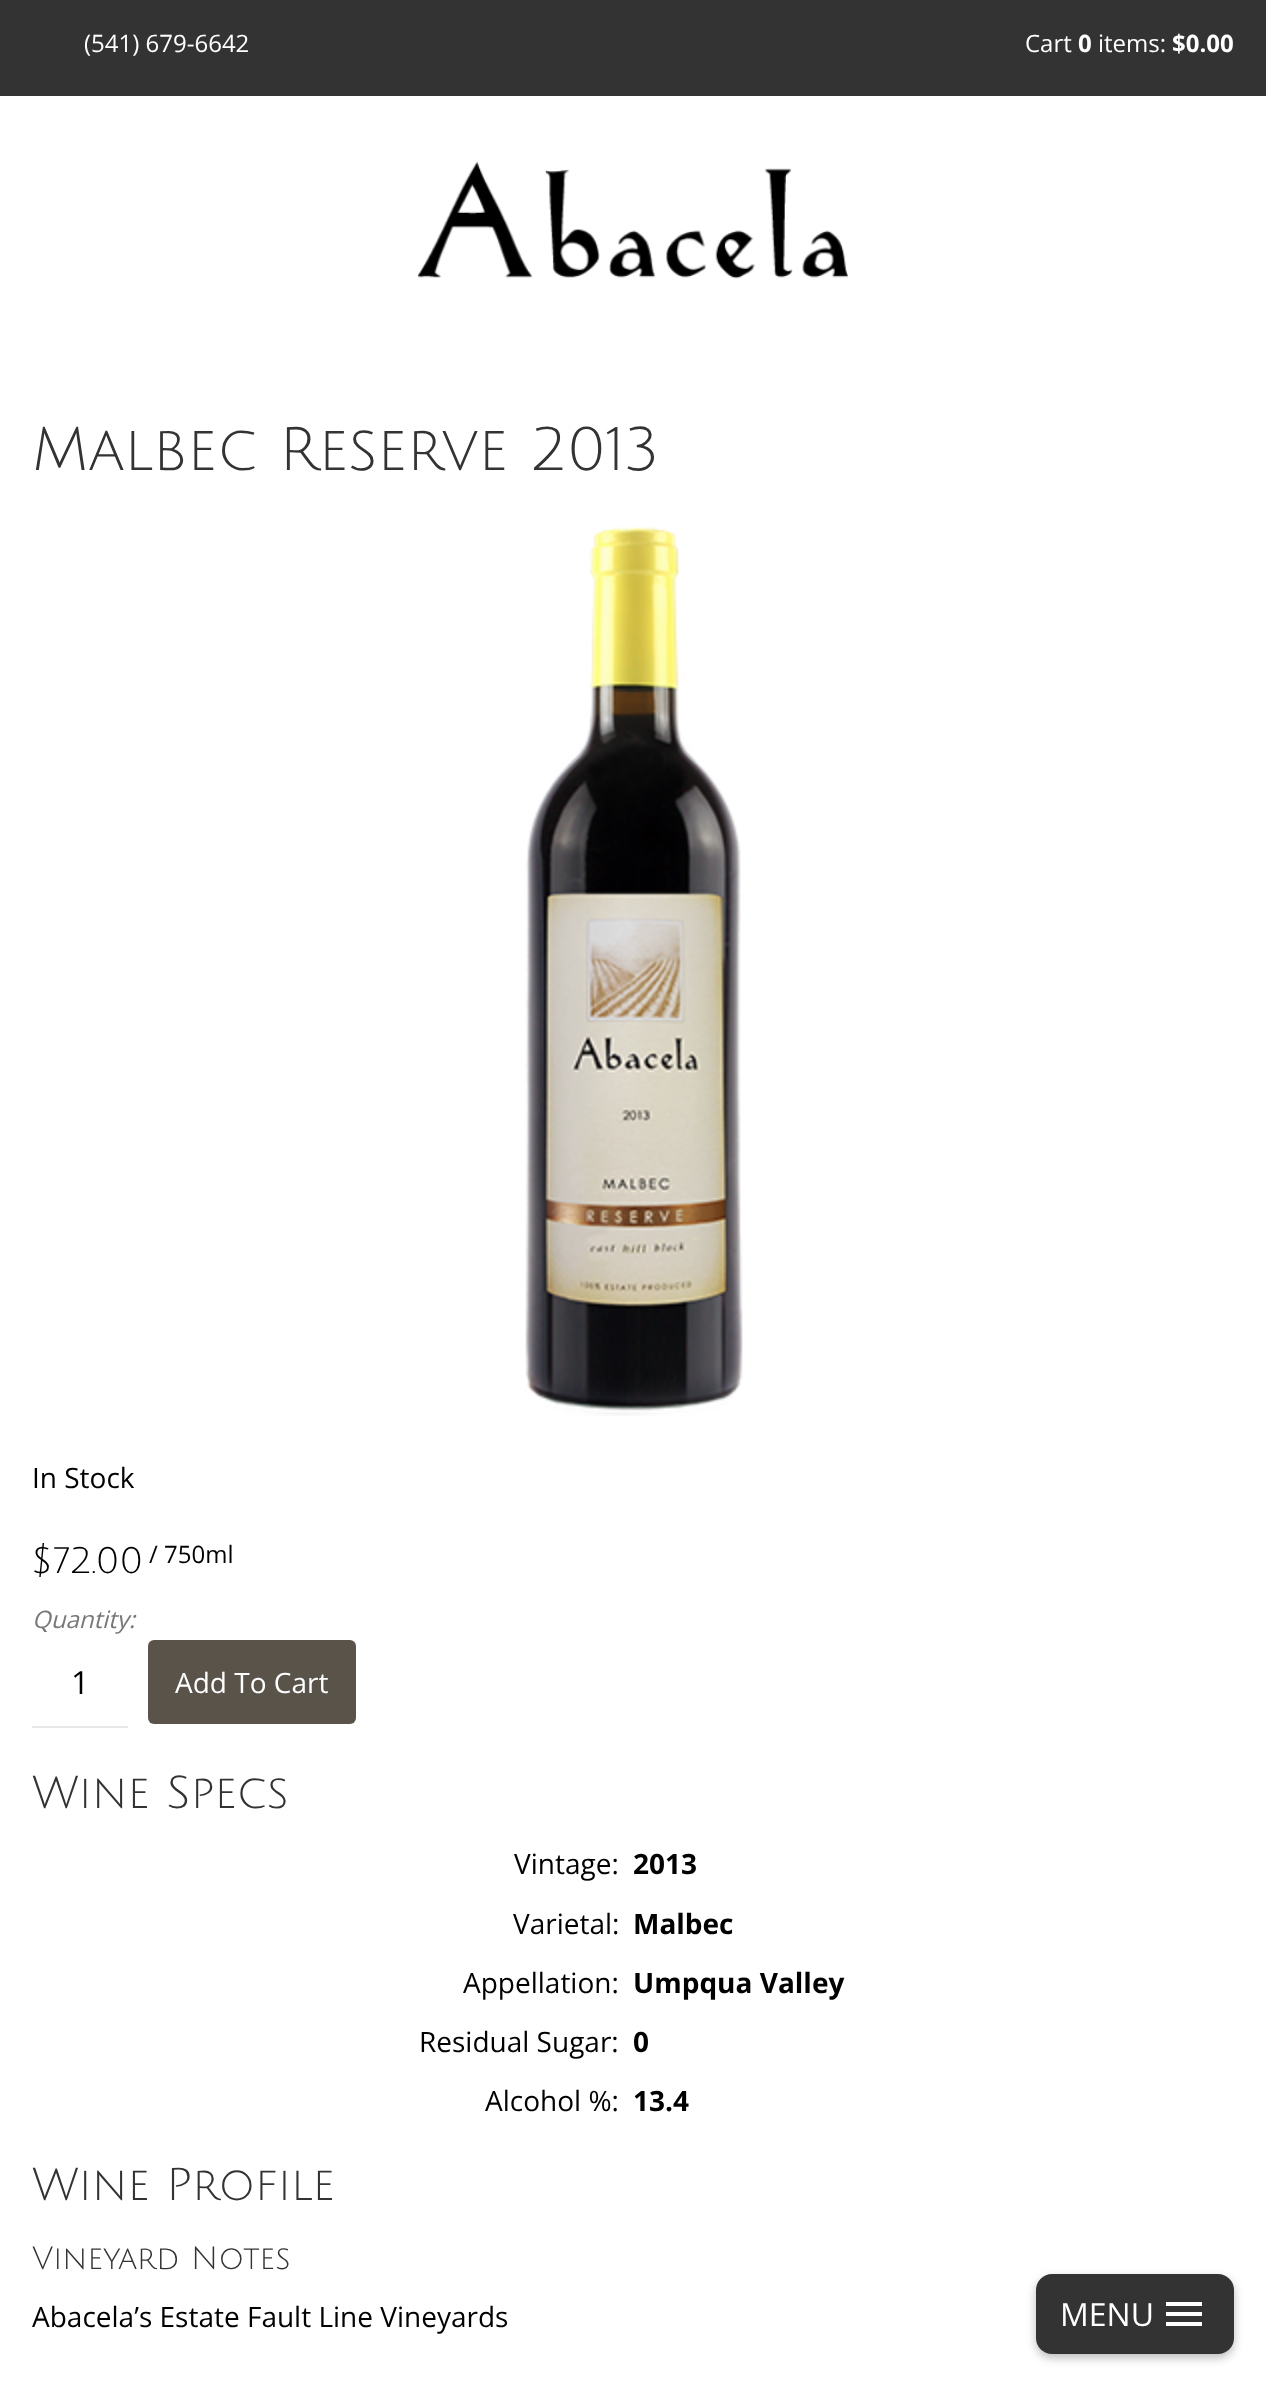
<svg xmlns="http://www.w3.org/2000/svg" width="1266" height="2385">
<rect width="100%" height="100%" fill="#fff"/>
<rect width="1266" height="96" fill="#333"/>
<text x="84" y="52" style="font-family:Open Sans;font-size:24px;fill:#fff">(541) 679-6642</text>
<text x="1025" y="52" style="font-family:Open Sans;font-size:24px;fill:#fff">Cart</text>
<text x="1078" y="52" style="font-family:Open Sans;font-size:24px;font-weight:bold;fill:#fff">0</text>
<text x="1098" y="52" style="font-family:Open Sans;font-size:24px;fill:#fff">items:</text>
<text x="1172" y="52" style="font-family:Open Sans;font-size:24px;font-weight:bold;fill:#fff">$0.00</text>
<image x="418" y="161" width="430" height="118" href="media/1.png"/>
<text x="32" y="470" style="font-family:Julius Sans One;font-size:60px;fill:#333">Malbec Reserve 2013</text>
<image x="525" y="527" width="218" height="889" href="media/2.png"/>
<text x="32" y="1488" style="font-family:Open Sans;font-size:28px;fill:#000">In Stock</text>
<text x="32" y="1573" style="font-family:Julius Sans One;font-size:36px;fill:#000">$72.00</text>
<text x="149" y="1563" style="font-family:Open Sans;font-size:24px;fill:#000">/ 750ml</text>
<text x="32" y="1628" style="font-family:Open Sans;font-size:24px;font-style:italic;fill:#787878">Quantity:</text>
<rect x="32" y="1726" width="96" height="2" fill="#e8e8e8"/>
<text x="71" y="1694" style="font-family:Open Sans;font-size:32px;fill:#000">1</text>
<rect x="148" y="1640" width="208" height="84" rx="6" fill="#59534a"/>
<text x="175" y="1693" style="font-family:Open Sans;font-size:28px;fill:#fff">Add To Cart</text>
<text x="32" y="1808" style="font-family:Julius Sans One;font-size:45px;fill:#333">Wine Specs</text>
<text x="514" y="1874" style="font-family:Open Sans;font-size:28px;fill:#000">Vintage:</text>
<text x="633" y="1874" style="font-family:Open Sans;font-size:28px;font-weight:bold;fill:#000">2013</text>
<text x="513" y="1934" style="font-family:Open Sans;font-size:28px;fill:#000">Varietal:</text>
<text x="633" y="1934" style="font-family:Open Sans;font-size:28px;font-weight:bold;fill:#000">Malbec</text>
<text x="463" y="1993" style="font-family:Open Sans;font-size:28px;fill:#000">Appellation:</text>
<text x="633" y="1993" style="font-family:Open Sans;font-size:28px;font-weight:bold;fill:#000">Umpqua Valley</text>
<text x="419" y="2052" style="font-family:Open Sans;font-size:28px;fill:#000">Residual Sugar:</text>
<text x="633" y="2052" style="font-family:Open Sans;font-size:28px;font-weight:bold;fill:#000">0</text>
<text x="485" y="2111" style="font-family:Open Sans;font-size:28px;fill:#000">Alcohol %:</text>
<text x="633" y="2111" style="font-family:Open Sans;font-size:28px;font-weight:bold;fill:#000">13.4</text>
<text x="32" y="2200" style="font-family:Julius Sans One;font-size:45px;fill:#333">Wine Profile</text>
<text x="32" y="2269" style="font-family:Julius Sans One;font-size:31.5px;fill:#333">Vineyard Notes</text>
<text x="32" y="2327" style="font-family:Open Sans;font-size:28px;fill:#000">Abacela’s Estate Fault Line Vineyards</text>
<rect x="1036" y="2278" width="198" height="80" rx="16" fill="#00000042" filter="blur(5px)"/>
<rect x="1036" y="2274" width="198" height="80" rx="16" fill="#333"/>
<path d="M1166 2326h36v-4h-36zm0-10h36v-4h-36zm0-14v4h36v-4z" fill="#fff" fill-rule="evenodd"/>
<text x="1060" y="2326" style="font-family:Open Sans;font-size:32px;fill:#fff">MENU</text>
</svg>
